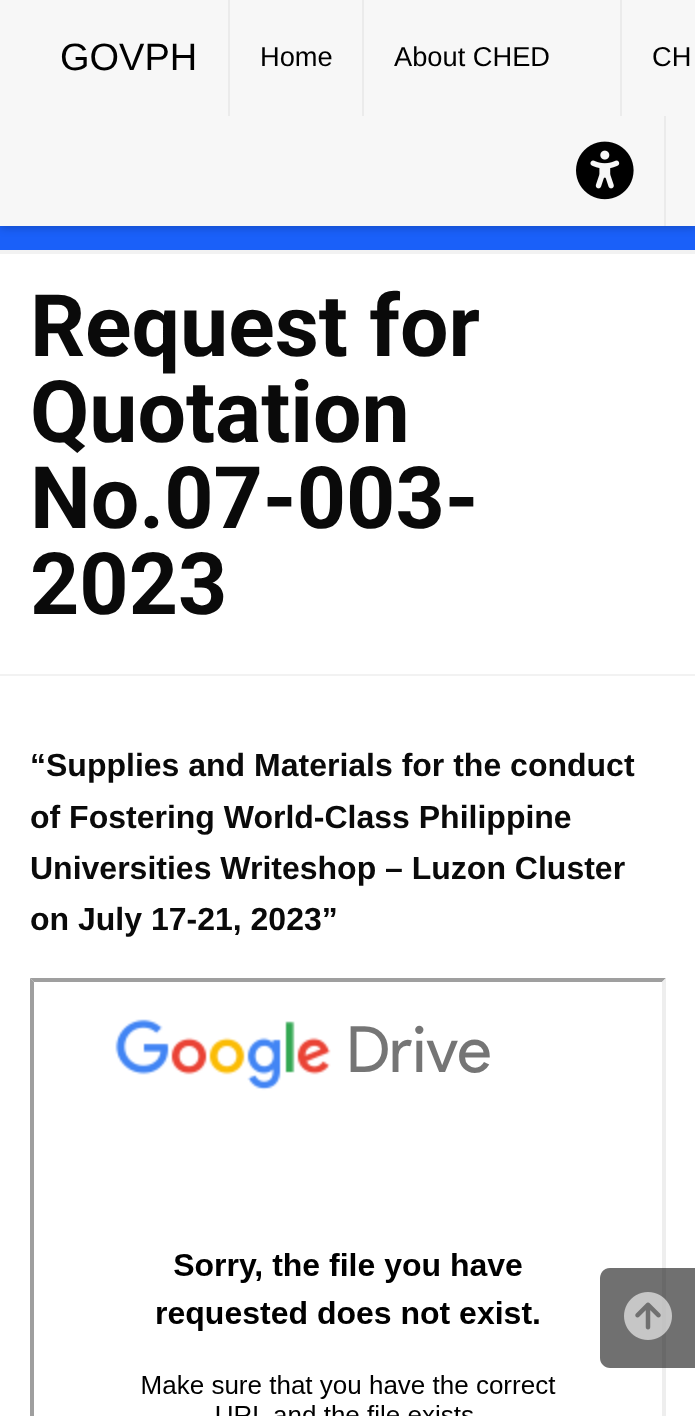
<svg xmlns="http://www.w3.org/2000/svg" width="695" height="1416">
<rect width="100%" height="100%" fill="#fff"/>
<rect y="226" width="695" height="24" fill="#1a60f9"/>
<rect y="2" width="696" height="226" fill="#00000033" filter="blur(4px)"/>
<rect width="695" height="226" fill="#f7f7f7"/>
<rect x="228" width="2" height="116" fill="#ebebeb"/>
<text x="60" y="70" style="font-family:Liberation Sans;font-size:38px;fill:#000">GOVPH</text>
<rect x="362" width="2" height="116" fill="#ebebeb"/>
<text x="260" y="66" style="font-family:Liberation Sans;font-size:27.25px;fill:#000">Home</text>
<rect x="620" width="2" height="116" fill="#ebebeb"/>
<text x="394" y="66" style="font-family:Liberation Sans;font-size:27.25px;fill:#000">About CHED</text>
<text x="652" y="66" style="font-family:Liberation Sans;font-size:27.25px;fill:#000">CH</text>
<rect x="664" y="116" width="2" height="110" fill="#ebebeb"/>
<image x="576" y="141" width="58" height="59" href="media/1.png"/>
<rect y="250" width="695" height="4" fill="#f2f2f2"/>
<rect y="674" width="695" height="2" fill="#f2f2f2"/>
<text x="30" y="356" style="font-family:Roboto;font-size:86px;font-weight:bold;fill:#0a0a0a">Request for</text>
<text x="30" y="442" style="font-family:Roboto;font-size:86px;font-weight:bold;fill:#0a0a0a">Quotation</text>
<text x="30" y="528" style="font-family:Roboto;font-size:86px;font-weight:bold;fill:#0a0a0a">No.07-003-</text>
<text x="30" y="614" style="font-family:Roboto;font-size:86px;font-weight:bold;fill:#0a0a0a">2023</text>
<text x="30" y="776" style="font-family:Liberation Sans;font-size:32px;font-weight:bold;fill:#0a0a0a">“Supplies and Materials for the conduct</text>
<text x="30" y="828" style="font-family:Liberation Sans;font-size:32px;font-weight:bold;fill:#0a0a0a">of Fostering World-Class Philippine</text>
<text x="30" y="879" style="font-family:Liberation Sans;font-size:32px;font-weight:bold;fill:#0a0a0a">Universities Writeshop – Luzon Cluster</text>
<text x="30" y="930" style="font-family:Liberation Sans;font-size:32px;font-weight:bold;fill:#0a0a0a">on July 17-21, 2023”</text>
<path d="M30 978h636l-4 4h-628z" fill="#9f9f9f"/>
<path d="M30 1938v-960l4 4v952z" fill="#9f9f9f"/>
<image x="115" y="1019" width="441" height="397" href="media/2.png"/>
<path d="M666 978v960l-4-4v-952z" fill="#eee"/>
<path d="M610 1268h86v100h-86c-5.5 0-10-4.5-10-10v-80c0-5.5 4.5-10 10-10z" fill="#11111199"/>
<image x="624" y="1292" width="48" height="48" href="media/3.png"/>
</svg>
